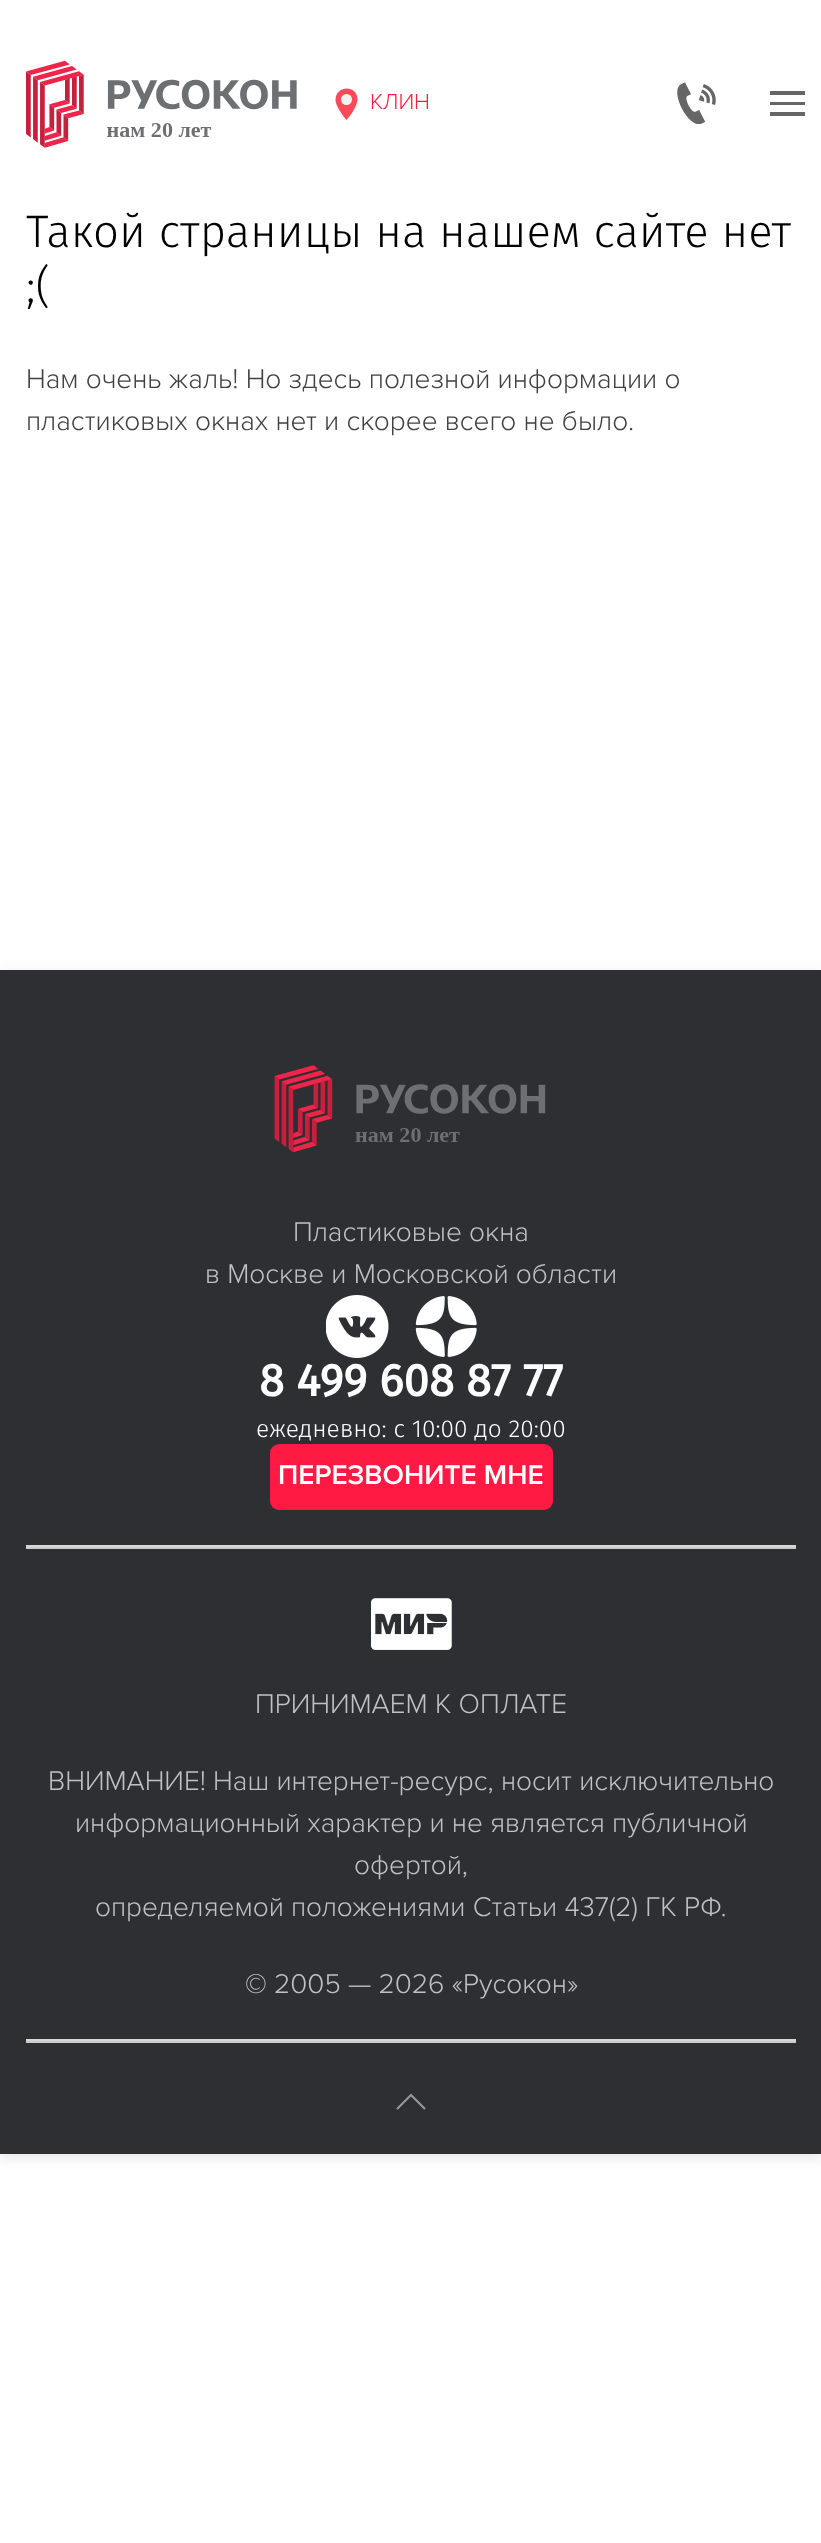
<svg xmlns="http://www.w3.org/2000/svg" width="821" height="2543">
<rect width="100%" height="100%" fill="#fff"/>
<image x="26" y="60" width="271" height="88" href="media/1.png"/>
<path d="M357.5 99.5c-.5 7-6.5 15.5-11 20.5c-3.5-4-11.5-15-11-20.5c1-15 22-14 22 0z" fill="#fb4a59"/>
<text x="370" y="109" style="font-family:Proxima Nova;font-size:22.5px;fill:#ff1a44">КЛИН</text>
<circle cx="346.5" cy="99.5" r="5.5" fill="#f2f2f2"/>
<image x="677" y="82" width="39" height="42" href="media/2.png"/>
<rect x="770" y="102" width="35" height="3" fill="#666"/>
<rect x="770" y="91" width="35" height="4" fill="#666"/>
<rect x="770" y="112" width="35" height="4" fill="#666"/>
<text x="26" y="247" style="font-family:Fira Sans;font-size:45.5px;font-weight:300;fill:#000">Такой страницы на нашем сайте нет</text>
<text x="26" y="302" style="font-family:Fira Sans;font-size:45.5px;font-weight:300;fill:#000">;(</text>
<text x="26" y="388" style="font-family:Proxima Nova;font-size:28px;fill:#404040">Нам очень жаль! Но здесь полезной информации о</text>
<text x="26" y="430" style="font-family:Proxima Nova;font-size:28px;fill:#404040">пластиковых окнах нет и скорее всего не было.</text>
<rect y="973" width="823" height="1185" fill="#0000001a" filter="blur(7px)"/>
<rect y="970" width="821" height="1184" fill="#2d2f33"/>
<image x="274" y="1065" width="272" height="88" href="media/3.png"/>
<text x="293" y="1241" style="font-family:Proxima Nova;font-size:28px;fill:#c0c1c2">Пластиковые окна</text>
<text x="205" y="1283" style="font-family:Proxima Nova;font-size:28px;fill:#c0c1c2">в Москве и Московской области</text>
<image x="326" y="1295" width="63" height="63" href="media/4.png"/>
<image x="415" y="1296" width="62" height="61" href="media/5.png"/>
<text x="259" y="1396" style="font-family:Fira Sans;font-size:45.5px;font-weight:bold;fill:#fff">8 499 608 87 77</text>
<text x="256" y="1437" style="font-family:Fira Sans;font-size:24.5px;font-weight:300;fill:#fff">ежедневно: с 10:00 до 20:00</text>
<rect x="270" y="1444" width="283" height="66" rx="9" fill="#ff1a44"/>
<text x="278" y="1484" style="font-family:'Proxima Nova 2';font-size:28px;fill:#fff">ПЕРЕЗВОНИТЕ МНЕ</text>
<rect x="26" y="1547" width="770" height="2" fill="#ccc"/>
<rect x="26" y="1545" width="770" height="2" fill="#d6d6d6"/>
<image x="371" y="1598" width="81" height="52" href="media/6.png"/>
<text x="255" y="1713" style="font-family:Proxima Nova;font-size:28px;fill:#c0c1c2">ПРИНИМАЕМ К ОПЛАТЕ</text>
<text x="48" y="1790" style="font-family:Proxima Nova;font-size:28px;fill:#c0c1c2">ВНИМАНИЕ! Наш интернет-ресурс, носит исключительно</text>
<text x="75" y="1832" style="font-family:Proxima Nova;font-size:28px;fill:#c0c1c2">информационный характер и не является публичной</text>
<text x="354" y="1874" style="font-family:Proxima Nova;font-size:28px;fill:#c0c1c2">офертой,</text>
<text x="95" y="1916" style="font-family:Proxima Nova;font-size:28px;fill:#c0c1c2">определяемой положениями Статьи 437(2) ГК РФ.</text>
<text x="245" y="1993" style="font-family:Proxima Nova;font-size:28px;fill:#c0c1c2">© 2005 — 2026 «Русокон»</text>
<rect x="26" y="2041" width="770" height="2" fill="#ccc"/>
<rect x="26" y="2039" width="770" height="2" fill="#d6d6d6"/>
<path d="M397 2109l14-14l14 14" fill="none" stroke="#969799" stroke-width="2.1"/>
</svg>
